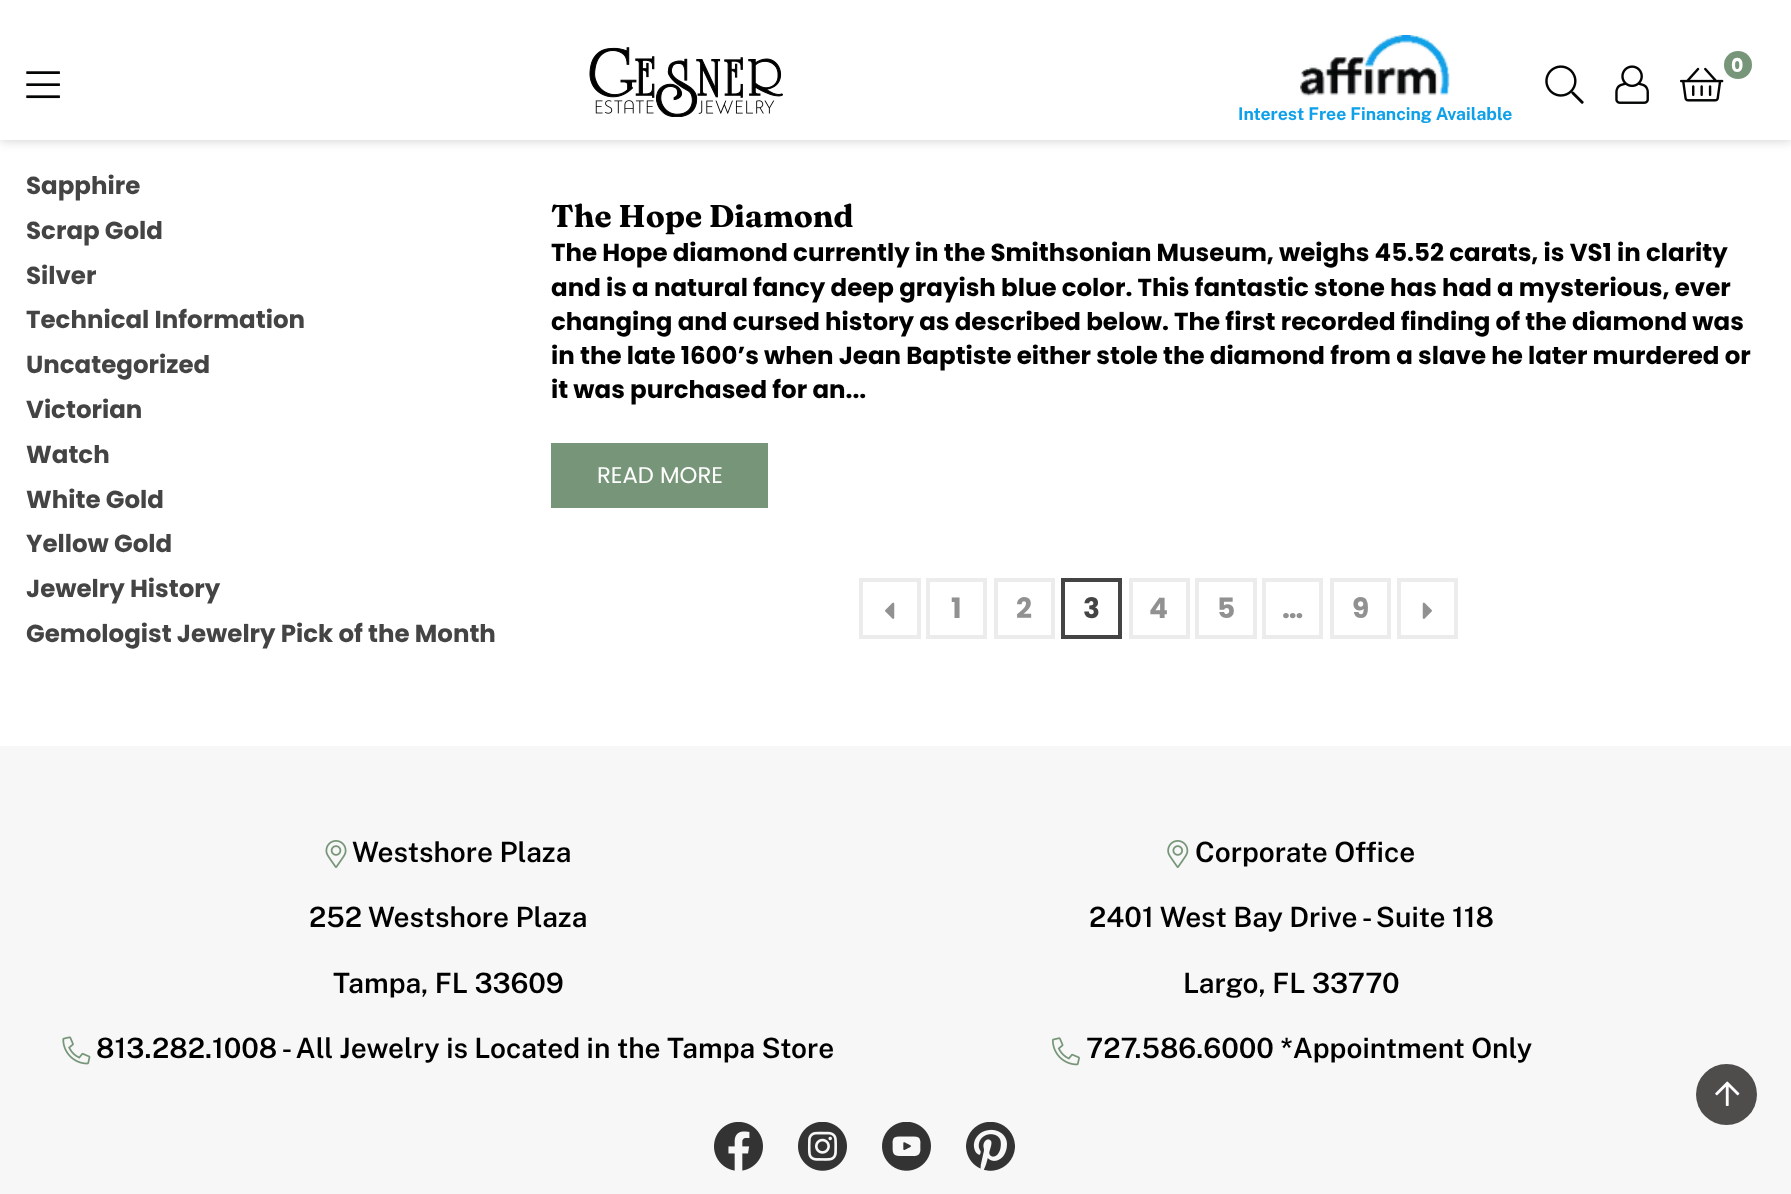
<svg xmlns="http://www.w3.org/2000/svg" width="1791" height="1194">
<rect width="100%" height="100%" fill="#fff"/>
<rect width="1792" height="140" fill="#00000033" filter="blur(6px)"/>
<rect width="1791" height="140" fill="#fff"/>
<image x="26" y="71" width="34" height="28" href="media/1.png"/>
<image x="589" y="47" width="194" height="70" href="media/2.png"/>
<image x="1545" y="65" width="39" height="39" href="media/3.png"/>
<image x="1615" y="65" width="34" height="39" href="media/4.png"/>
<circle cx="1738" cy="65" r="14" fill="#779679"/>
<text x="1731" y="72" style="font-family:Poppins;font-size:19px;font-weight:bold;fill:#fff">0</text>
<image x="1680" y="67" width="44" height="35" href="media/5.png"/>
<image x="1300" y="35" width="150" height="62" href="media/6.png"/>
<text x="1238" y="120" style="font-family:Public Sans;font-size:17.5px;font-weight:bold;fill:#0fa0ea">Interest Free Financing Available</text>
<text x="26" y="194" style="font-family:Poppins;font-size:24.5px;font-weight:bold;fill:#444">Sapphire</text>
<text x="26" y="239" style="font-family:Poppins;font-size:24.5px;font-weight:bold;fill:#444">Scrap Gold</text>
<text x="26" y="284" style="font-family:Poppins;font-size:24.5px;font-weight:bold;fill:#444">Silver</text>
<text x="26" y="328" style="font-family:Poppins;font-size:24.5px;font-weight:bold;fill:#444">Technical Information</text>
<text x="26" y="373" style="font-family:Poppins;font-size:24.5px;font-weight:bold;fill:#444">Uncategorized</text>
<text x="26" y="418" style="font-family:Poppins;font-size:24.5px;font-weight:bold;fill:#444">Victorian</text>
<text x="26" y="463" style="font-family:Poppins;font-size:24.5px;font-weight:bold;fill:#444">Watch</text>
<text x="26" y="508" style="font-family:Poppins;font-size:24.5px;font-weight:bold;fill:#444">White Gold</text>
<text x="26" y="552" style="font-family:Poppins;font-size:24.5px;font-weight:bold;fill:#444">Yellow Gold</text>
<text x="26" y="597" style="font-family:Poppins;font-size:24.5px;font-weight:bold;fill:#444">Jewelry History</text>
<text x="26" y="642" style="font-family:Poppins;font-size:24.5px;font-weight:bold;fill:#444">Gemologist Jewelry Pick of the Month</text>
<text x="551" y="227" style="font-family:Fraunces;font-size:31.5px;font-weight:bold;fill:#000">The Hope Diamond</text>
<text x="551" y="261" style="font-family:Poppins;font-size:24.5px;font-weight:bold;fill:#000">The Hope diamond currently in the Smithsonian Museum, weighs 45.52 carats, is VS1 in clarity</text>
<text x="551" y="296" style="font-family:Poppins;font-size:24.5px;font-weight:bold;fill:#000">and is a natural fancy deep grayish blue color. This fantastic stone has had a mysterious, ever</text>
<text x="551" y="330" style="font-family:Poppins;font-size:24.5px;font-weight:bold;fill:#000">changing and cursed history as described below. The first recorded finding of the diamond was</text>
<text x="551" y="364" style="font-family:Poppins;font-size:24.5px;font-weight:bold;fill:#000">in the late 1600’s when Jean Baptiste either stole the diamond from a slave he later murdered or</text>
<text x="551" y="398" style="font-family:Poppins;font-size:24.5px;font-weight:bold;fill:#000">it was purchased for an...</text>
<rect x="551" y="443" width="217" height="65" fill="#779679"/>
<text x="597" y="483" style="font-family:Poppins;font-size:22.75px;fill:#fff">READ MORE</text>
<rect x="861" y="580" width="58" height="57" fill="none" stroke="#ececec" stroke-width="4"/>
<image x="885" y="602" width="10" height="17" href="media/7.png"/>
<rect x="928" y="580" width="57" height="57" fill="none" stroke="#ececec" stroke-width="4"/>
<text x="951" y="618" style="font-family:Poppins;font-size:28px;font-weight:bold;fill:#919191">1</text>
<rect x="996" y="580" width="57" height="57" fill="none" stroke="#ececec" stroke-width="4"/>
<text x="1016" y="618" style="font-family:Poppins;font-size:28px;font-weight:bold;fill:#919191">2</text>
<rect x="1063" y="580" width="57" height="57" fill="none" stroke="#444" stroke-width="4"/>
<text x="1083" y="618" style="font-family:Poppins;font-size:28px;font-weight:bold;fill:#444">3</text>
<rect x="1131" y="580" width="57" height="57" fill="none" stroke="#ececec" stroke-width="4"/>
<text x="1149" y="618" style="font-family:Poppins;font-size:28px;font-weight:bold;fill:#919191">4</text>
<rect x="1197" y="580" width="58" height="57" fill="none" stroke="#ececec" stroke-width="4"/>
<text x="1217" y="618" style="font-family:Poppins;font-size:28px;font-weight:bold;fill:#919191">5</text>
<rect x="1264" y="580" width="57" height="57" fill="none" stroke="#ececec" stroke-width="4"/>
<text x="1282" y="618" style="font-family:Poppins;font-size:28px;font-weight:bold;fill:#919191">…</text>
<rect x="1332" y="580" width="57" height="57" fill="none" stroke="#ececec" stroke-width="4"/>
<text x="1352" y="618" style="font-family:Poppins;font-size:28px;font-weight:bold;fill:#919191">9</text>
<rect x="1399" y="580" width="57" height="57" fill="none" stroke="#ececec" stroke-width="4"/>
<image x="1422" y="602" width="10" height="17" href="media/8.png"/>
<rect y="746" width="1791" height="448" fill="#f7f7f7"/>
<image x="325" y="840" width="22" height="28" href="media/9.png"/>
<text x="352" y="862" style="font-family:Public Sans;font-size:28px;font-weight:600;fill:#000">Westshore Plaza</text>
<text x="309" y="927" style="font-family:Public Sans;font-size:28px;font-weight:600;fill:#000">252 Westshore Plaza</text>
<text x="333" y="993" style="font-family:Public Sans;font-size:28px;font-weight:600;fill:#000">Tampa, FL 33609</text>
<image x="62" y="1036" width="29" height="29" href="media/10.png"/>
<text x="96" y="1058" style="font-family:Public Sans;font-size:28px;font-weight:600;fill:#000">813.282.1008 - All Jewelry is Located in the Tampa Store</text>
<image x="1167" y="840" width="22" height="28" href="media/11.png"/>
<text x="1195" y="862" style="font-family:Public Sans;font-size:28px;font-weight:600;fill:#000">Corporate Office</text>
<text x="1089" y="927" style="font-family:Public Sans;font-size:28px;font-weight:600;fill:#000">2401 West Bay Drive - Suite 118</text>
<text x="1183" y="993" style="font-family:Public Sans;font-size:28px;font-weight:600;fill:#000">Largo, FL 33770</text>
<image x="1052" y="1037" width="28" height="29" href="media/12.png"/>
<text x="1086" y="1058" style="font-family:Public Sans;font-size:28px;font-weight:600;fill:#000">727.586.6000 *Appointment Only</text>
<image x="714" y="1122" width="49" height="49" href="media/13.png"/>
<image x="798" y="1122" width="49" height="49" href="media/14.png"/>
<image x="882" y="1122" width="49" height="49" href="media/15.png"/>
<image x="966" y="1122" width="49" height="49" href="media/16.png"/>
<circle cx="1726.5" cy="1094.5" r="30.5" fill="#4f4c4c"/>
<image x="1715" y="1081" width="25" height="25" href="media/17.png"/>
</svg>
